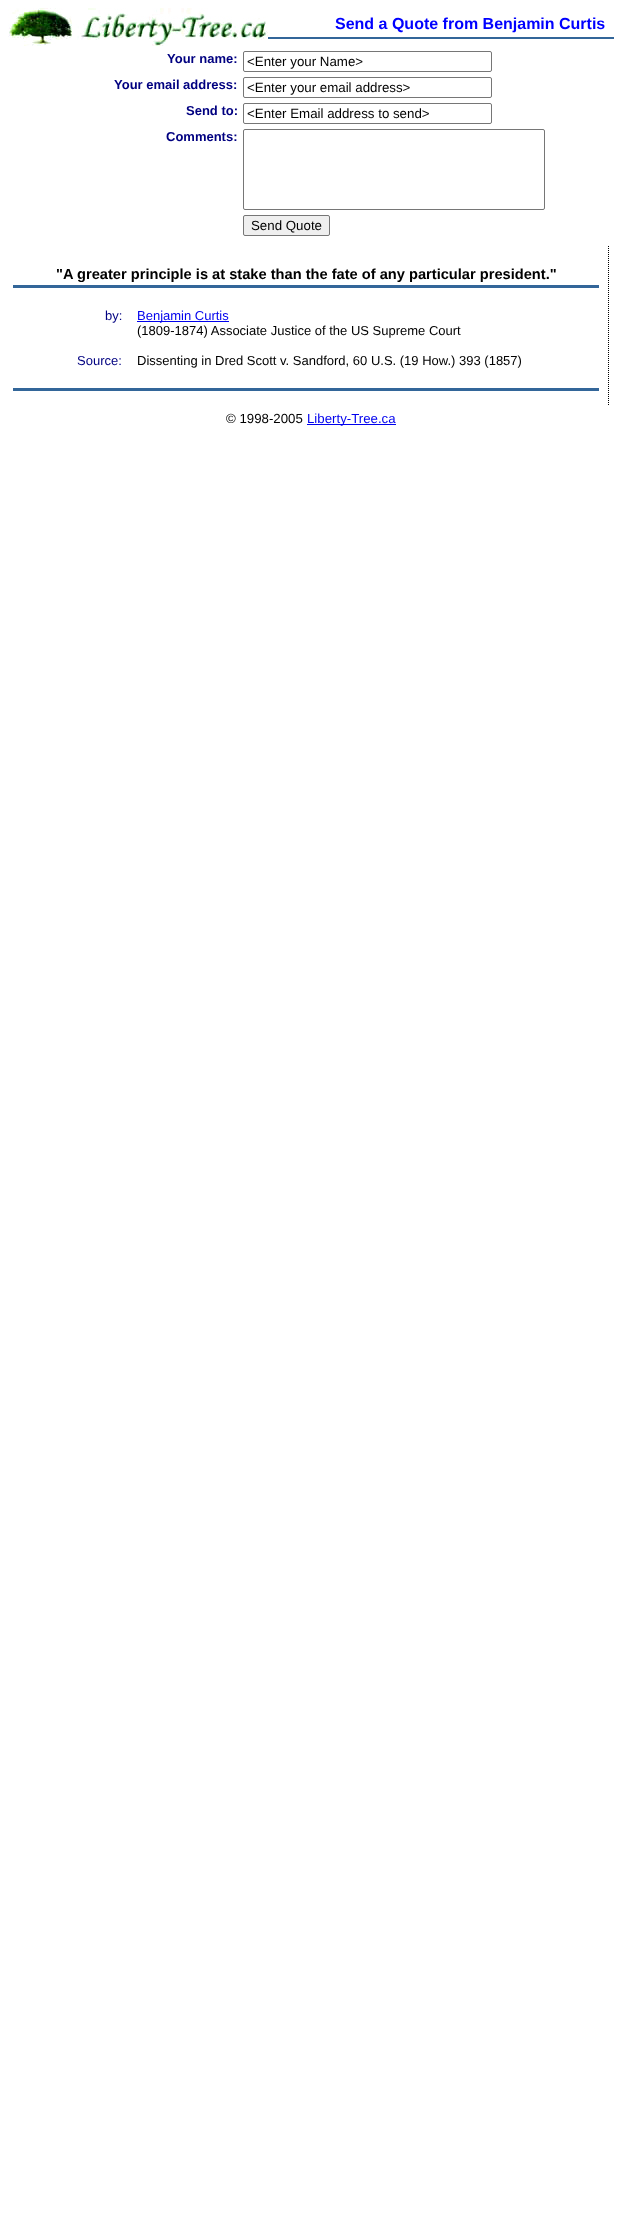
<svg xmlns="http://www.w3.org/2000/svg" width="622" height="2231">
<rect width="100%" height="100%" fill="#fff"/>
<image x="8" y="8" width="260" height="38" href="media/1.png"/>
<rect x="268" y="37" width="346" height="2" fill="#369"/>
<text x="335" y="29" style="font-family:Liberation Sans;font-size:16px;font-weight:bold;fill:#00f">Send a Quote from Benjamin Curtis</text>
<text x="167" y="63" style="font-family:Liberation Sans;font-size:13px;font-weight:bold;fill:#000080">Your name:</text>
<rect x="243.5" y="51.5" width="248" height="20" rx="1.5" fill="none" stroke="#767676"/>
<text x="247" y="66" style="font-family:Liberation Sans;font-size:13.3px;fill:#000">&lt;Enter your Name&gt;</text>
<text x="114" y="89" style="font-family:Liberation Sans;font-size:13px;font-weight:bold;fill:#000080">Your email address:</text>
<rect x="243.5" y="77.5" width="248" height="20" rx="1.5" fill="none" stroke="#767676"/>
<text x="247" y="92" style="font-family:Liberation Sans;font-size:13.3px;fill:#000">&lt;Enter your email address&gt;</text>
<text x="186" y="115" style="font-family:Liberation Sans;font-size:13px;font-weight:bold;fill:#000080">Send to:</text>
<rect x="243.5" y="103.5" width="248" height="20" rx="1.5" fill="none" stroke="#767676"/>
<text x="247" y="118" style="font-family:Liberation Sans;font-size:13.3px;fill:#000">&lt;Enter Email address to send&gt;</text>
<text x="166" y="141" style="font-family:Liberation Sans;font-size:13px;font-weight:bold;fill:#000080">Comments:</text>
<rect x="243.5" y="129.5" width="301" height="80" rx="1.5" fill="none" stroke="#767676"/>
<rect x="243.5" y="215.5" width="86" height="20" rx="1.5" fill="#efefef" stroke="#767676"/>
<text x="251" y="230" style="font-family:Liberation Sans;font-size:13.3px;fill:#000">Send Quote</text>
<text x="56" y="279" style="font-family:Liberation Sans;font-size:14.65px;font-weight:bold;fill:#000">"A greater principle is at stake than the fate of any particular president."</text>
<rect x="13" y="285" width="586" height="3" fill="#369"/>
<rect x="13" y="388" width="586" height="3" fill="#369"/>
<text x="105" y="320" style="font-family:Liberation Sans;font-size:13px;fill:#000080">by:</text>
<rect x="137" y="321" width="92" height="1" fill="#00e"/>
<text x="137" y="320" style="font-family:Liberation Sans;font-size:13px;fill:#00e">Benjamin Curtis</text>
<text x="137" y="335" style="font-family:Liberation Sans;font-size:13px;fill:#000">(1809-1874) Associate Justice of the US Supreme Court</text>
<text x="77" y="365" style="font-family:Liberation Sans;font-size:13px;fill:#000080">Source:</text>
<text x="137" y="365" style="font-family:Liberation Sans;font-size:13px;fill:#000">Dissenting in Dred Scott v. Sandford, 60 U.S. (19 How.) 393 (1857)</text>
<path d="M608.5 246v160" fill="none" stroke="#000" stroke-dasharray="1 1"/>
<text x="226" y="423" style="font-family:Liberation Sans;font-size:13.25px;fill:#000">© 1998-2005</text>
<rect x="307" y="424" width="89" height="1" fill="#00e"/>
<text x="307" y="423" style="font-family:Liberation Sans;font-size:13.25px;fill:#00e">Liberty-Tree.ca</text>
</svg>
